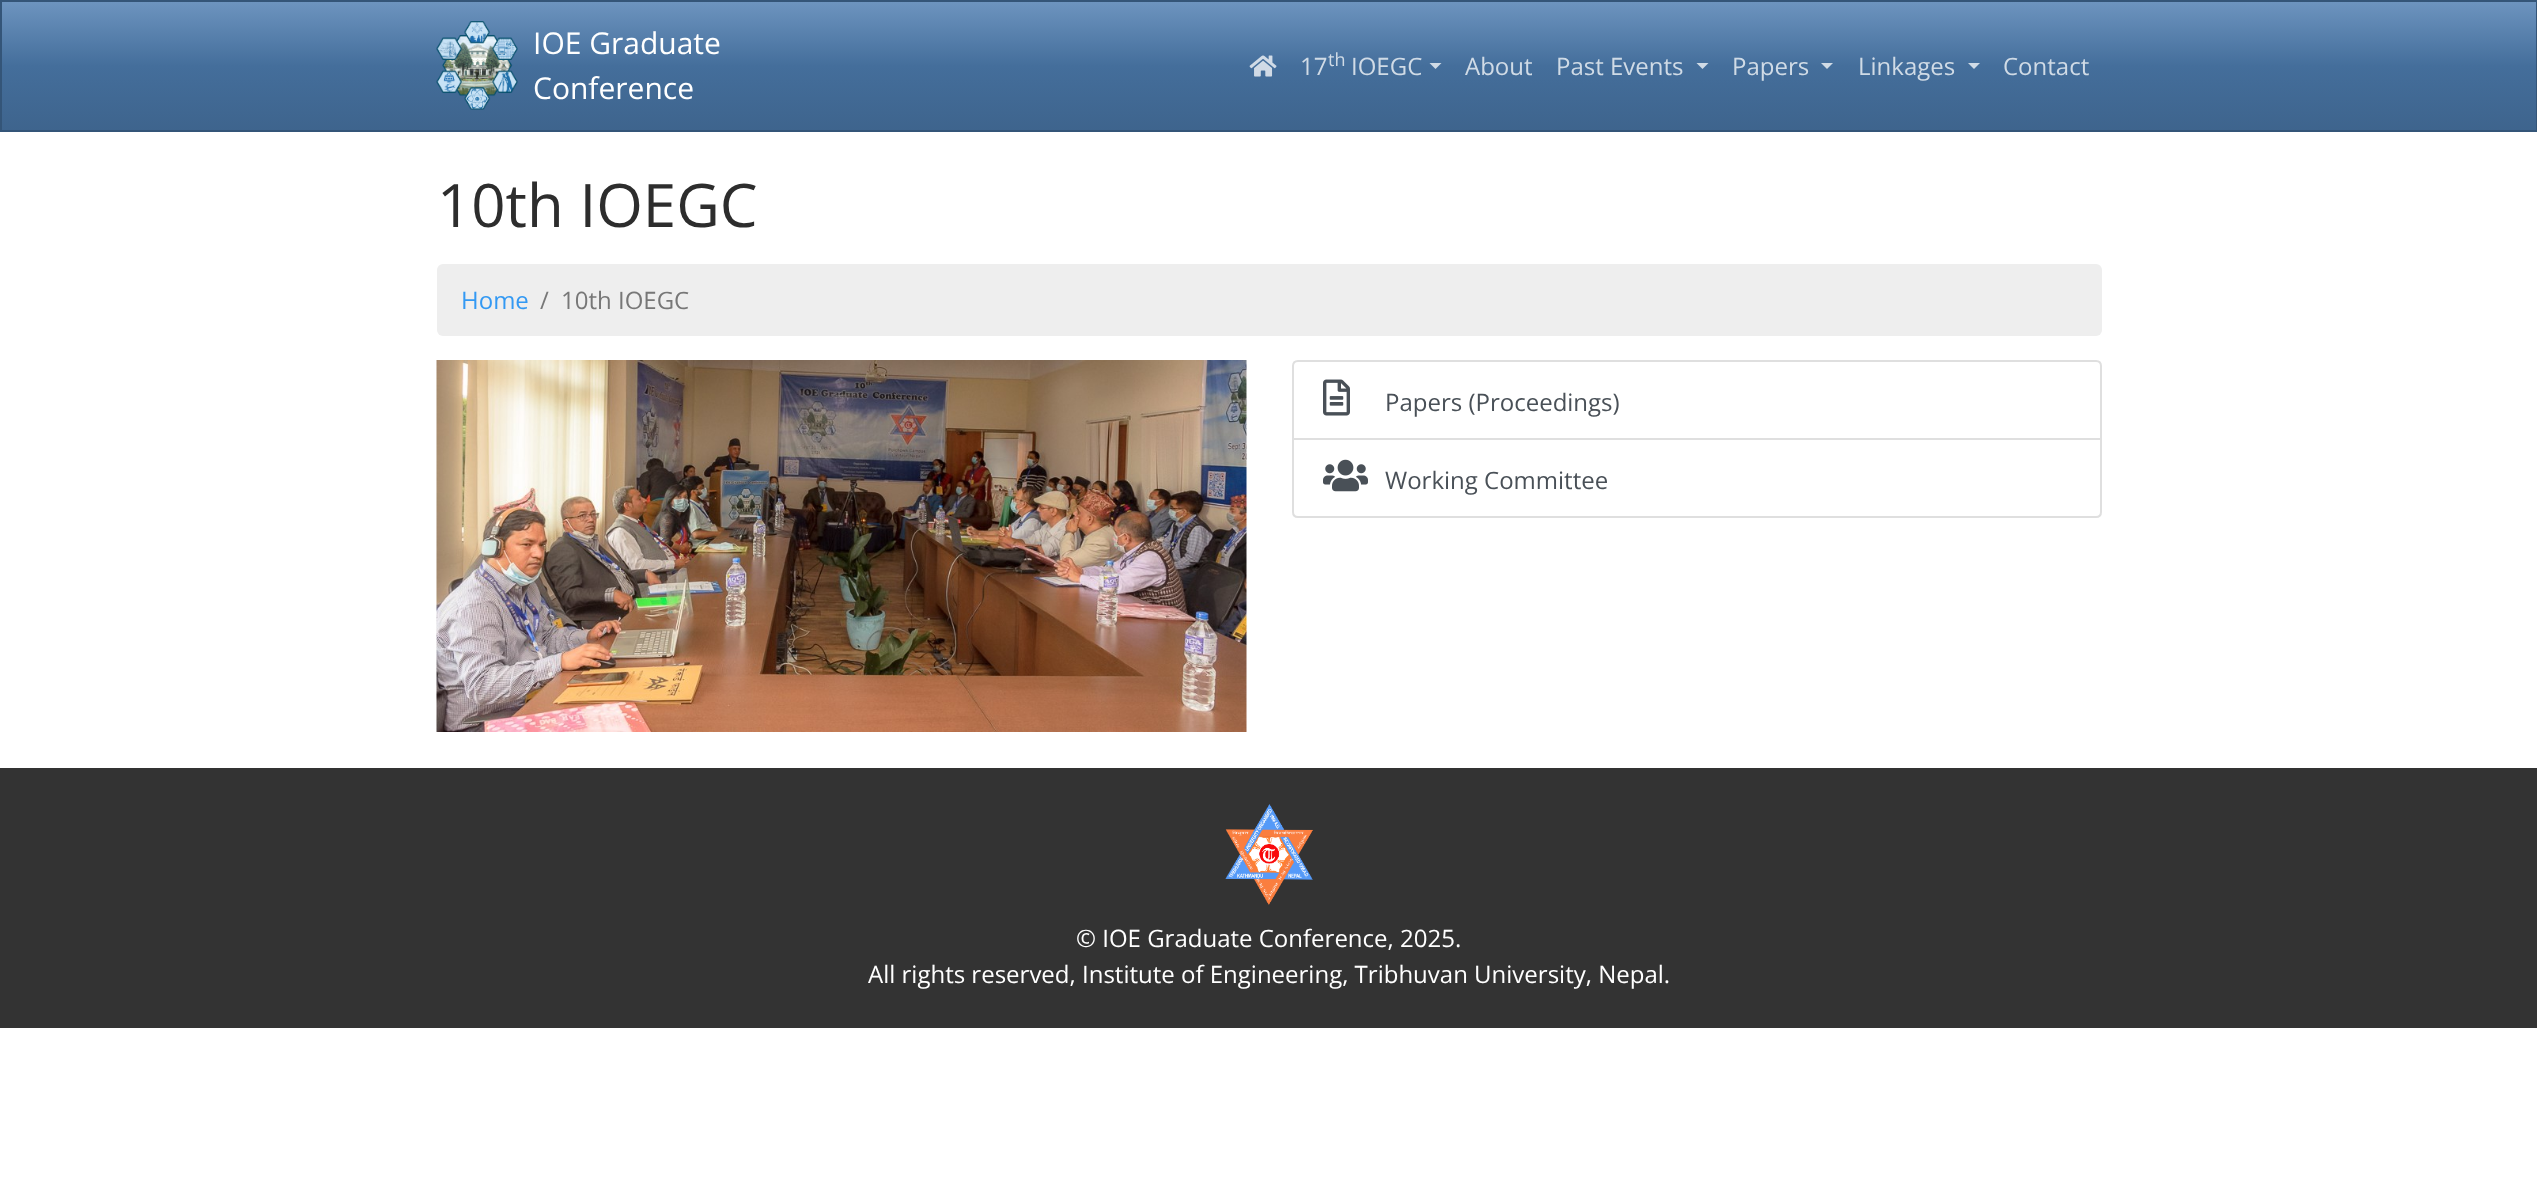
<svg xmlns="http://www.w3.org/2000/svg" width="2537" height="1187">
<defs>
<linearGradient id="g1" gradientUnits="userSpaceOnUse" x1="1269" y1="1.5" x2="1269" y2="131"><stop offset="0" stop-color="#6d94bf"/><stop offset="0.5" stop-color="#446e9b"/><stop offset="1" stop-color="#3e648d"/></linearGradient>
</defs>
<rect width="100%" height="100%" fill="#fff"/>
<rect x="2" y="2" width="2534" height="128" fill="url(#g1)"/>
<rect x="1" y="1" width="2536" height="130" fill="none" stroke="#345578" stroke-width="2"/>
<image x="436" y="21" width="82" height="89" href="media/1.png"/>
<text x="533" y="54" style="font-family:Open Sans;font-size:30px;fill:#fff">IOE Graduate</text>
<text x="533" y="99" style="font-family:Open Sans;font-size:30px;fill:#fff">Conference</text>
<image x="1249" y="55" width="28" height="22" href="media/2.png"/>
<text x="1300" y="75" style="font-family:Open Sans;font-size:24px;fill:#d0dbe6">17</text>
<text x="1328" y="66" style="font-family:Open Sans;font-size:18px;fill:#d0dbe6">th</text>
<text x="1351" y="75" style="font-family:Open Sans;font-size:24px;fill:#d0dbe6">IOEGC</text>
<path d="M1429.5 63h12l-6 6z" fill="#d0dbe6"/>
<text x="1465" y="75" style="font-family:Open Sans;font-size:24px;fill:#d0dbe6">About</text>
<text x="1556" y="75" style="font-family:Open Sans;font-size:24px;fill:#d0dbe6">Past Events</text>
<path d="M1696.5 63h12l-6 6z" fill="#d0dbe6"/>
<text x="1732" y="75" style="font-family:Open Sans;font-size:24px;fill:#d0dbe6">Papers</text>
<path d="M1821 63h12l-6 6z" fill="#d0dbe6"/>
<text x="1858" y="75" style="font-family:Open Sans;font-size:24px;fill:#d0dbe6">Linkages</text>
<path d="M1968 63h12l-6 6z" fill="#d0dbe6"/>
<text x="2003" y="75" style="font-family:Open Sans;font-size:24px;fill:#d0dbe6">Contact</text>
<text x="437" y="227" style="font-family:Open Sans;font-size:60px;fill:#2d2d2d">10th IOEGC</text>
<rect x="437" y="264" width="1665" height="72" rx="6" fill="#eee"/>
<text x="461" y="309" style="font-family:Open Sans;font-size:24px;fill:#3399f3">Home</text>
<text x="540" y="309" style="font-family:Open Sans;font-size:24px;fill:#777">/</text>
<text x="561" y="309" style="font-family:Open Sans;font-size:24px;fill:#777">10th IOEGC</text>
<image x="436" y="360" width="811" height="372" href="media/3.png"/>
<path d="M1298 361h798c3 0 5 2 5 5v73h-808v-73c0-3 2-5 5-5z" fill="none" stroke="#dfdfdf" stroke-width="2"/>
<image x="1323" y="379" width="27" height="37" href="media/4.png"/>
<text x="1385" y="411" style="font-family:Open Sans;font-size:24px;fill:#495057">Papers (Proceedings)</text>
<path d="M1293 439h808v73c0 3-2 5-5 5h-798c-3 0-5-2-5-5z" fill="#fff" stroke="#dfdfdf" stroke-width="2"/>
<image x="1323" y="459" width="45" height="33" href="media/5.png"/>
<text x="1385" y="489" style="font-family:Open Sans;font-size:24px;fill:#495057">Working Committee</text>
<rect y="768" width="2537" height="260" fill="#333"/>
<image x="1225" y="804" width="88" height="101" href="media/6.png"/>
<text x="1076" y="947" style="font-family:Open Sans;font-size:24px;fill:#fff">© IOE Graduate Conference, 2025.</text>
<text x="868" y="983" style="font-family:Open Sans;font-size:24px;fill:#fff">All rights reserved, Institute of Engineering, Tribhuvan University, Nepal.</text>
</svg>
